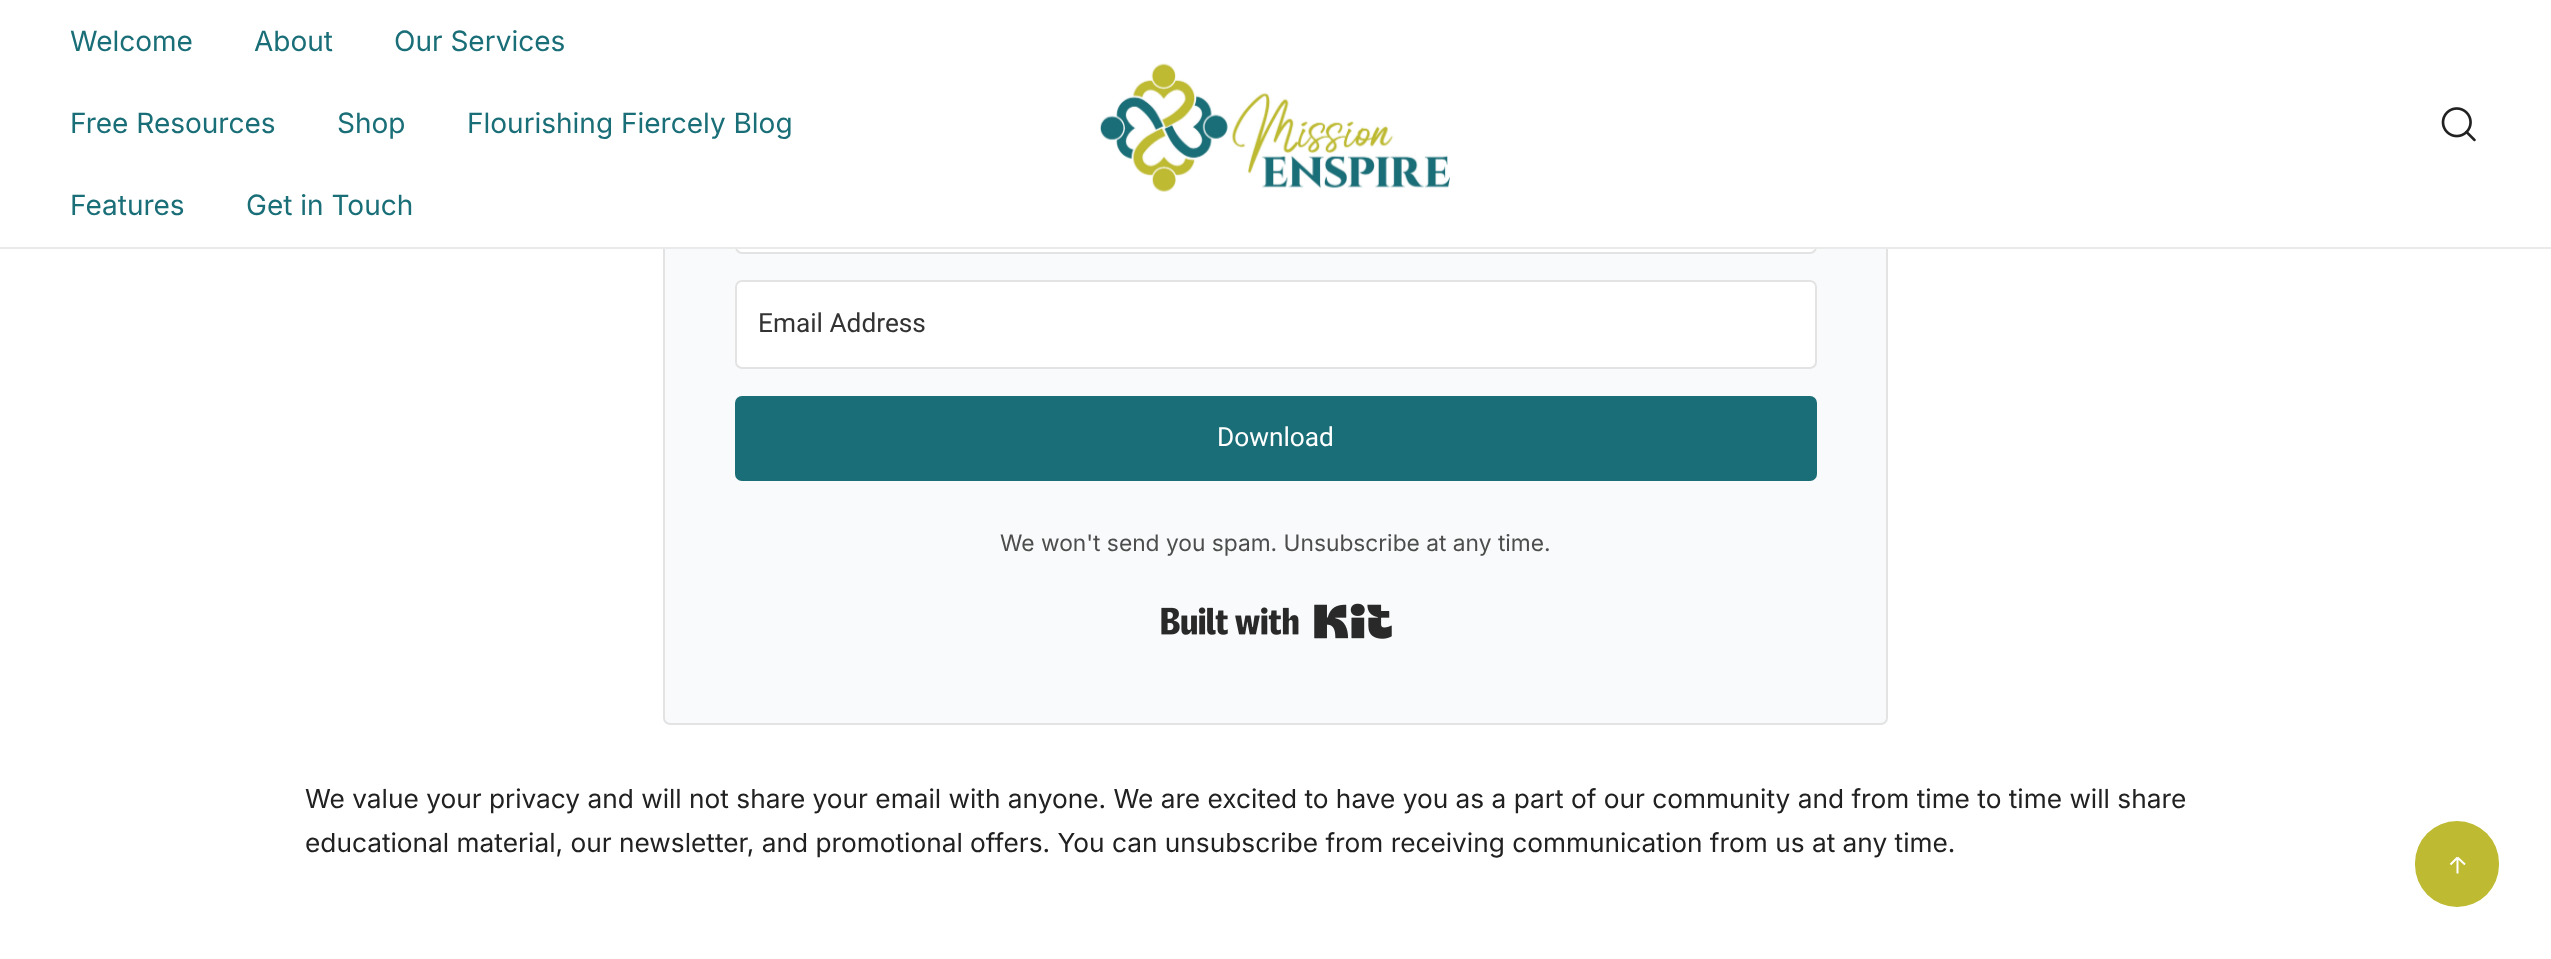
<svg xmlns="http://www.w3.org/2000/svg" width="2551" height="959">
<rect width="100%" height="100%" fill="#fff"/>
<rect x="664" y="-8" width="1223" height="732" rx="6" fill="#f9fafb" stroke="#e3e3e3" stroke-width="2"/>
<rect x="736" y="166" width="1080" height="87" rx="6" fill="#fff" stroke="#e3e3e3" stroke-width="2"/>
<rect x="663" width="1225" height="247" fill="#fff"/>
<rect y="247" width="2551" height="2" fill="#eaeaea"/>
<text x="70" y="51" style="font-family:Inter;font-size:28px;fill:#196e77">Welcome</text>
<text x="254" y="51" style="font-family:Inter;font-size:28px;fill:#196e77">About</text>
<text x="394" y="51" style="font-family:Inter;font-size:28px;fill:#196e77">Our Services</text>
<text x="70" y="133" style="font-family:Inter;font-size:28px;fill:#196e77">Free Resources</text>
<text x="337" y="133" style="font-family:Inter;font-size:28px;fill:#196e77">Shop</text>
<text x="467" y="133" style="font-family:Inter;font-size:28px;fill:#196e77">Flourishing Fiercely Blog</text>
<text x="70" y="215" style="font-family:Inter;font-size:28px;fill:#196e77">Features</text>
<text x="246" y="215" style="font-family:Inter;font-size:28px;fill:#196e77">Get in Touch</text>
<image x="1100" y="63" width="350" height="129" href="media/1.png"/>
<image x="2441" y="107" width="35" height="35" href="media/2.png"/>
<rect x="736" y="281" width="1080" height="87" rx="6" fill="#fff" stroke="#e3e3e3" stroke-width="2"/>
<text x="758" y="332" style="font-family:Roboto;font-size:26.25px;fill:#333">Email Address</text>
<rect x="735" y="396" width="1082" height="85" rx="7" fill="#196e77"/>
<text x="1217" y="446" style="font-family:Roboto;font-size:26.25px;fill:#fff">Download</text>
<text x="1000" y="551" style="font-family:Inter;font-size:22.75px;fill:#4d4d4d">We won't send you spam. Unsubscribe at any time.</text>
<image x="1161" y="603" width="231" height="36" href="media/3.png"/>
<text x="305" y="808" style="font-family:Inter;font-size:26.25px;fill:#212121">We value your privacy and will not share your email with anyone. We are excited to have you as a part of our community and from time to time will share</text>
<text x="305" y="852" style="font-family:Inter;font-size:26.25px;fill:#212121">educational material, our newsletter, and promotional offers. You can unsubscribe from receiving communication from us at any time.</text>
<rect x="2415" y="821" width="84" height="86" rx="42" fill="#beba31"/>
<path d="M2450.5 864.5l7-7m0 0l7.5 7m-7.5-7v16" fill="none" stroke="#fff" stroke-width="2" stroke-linejoin="round"/>
</svg>
